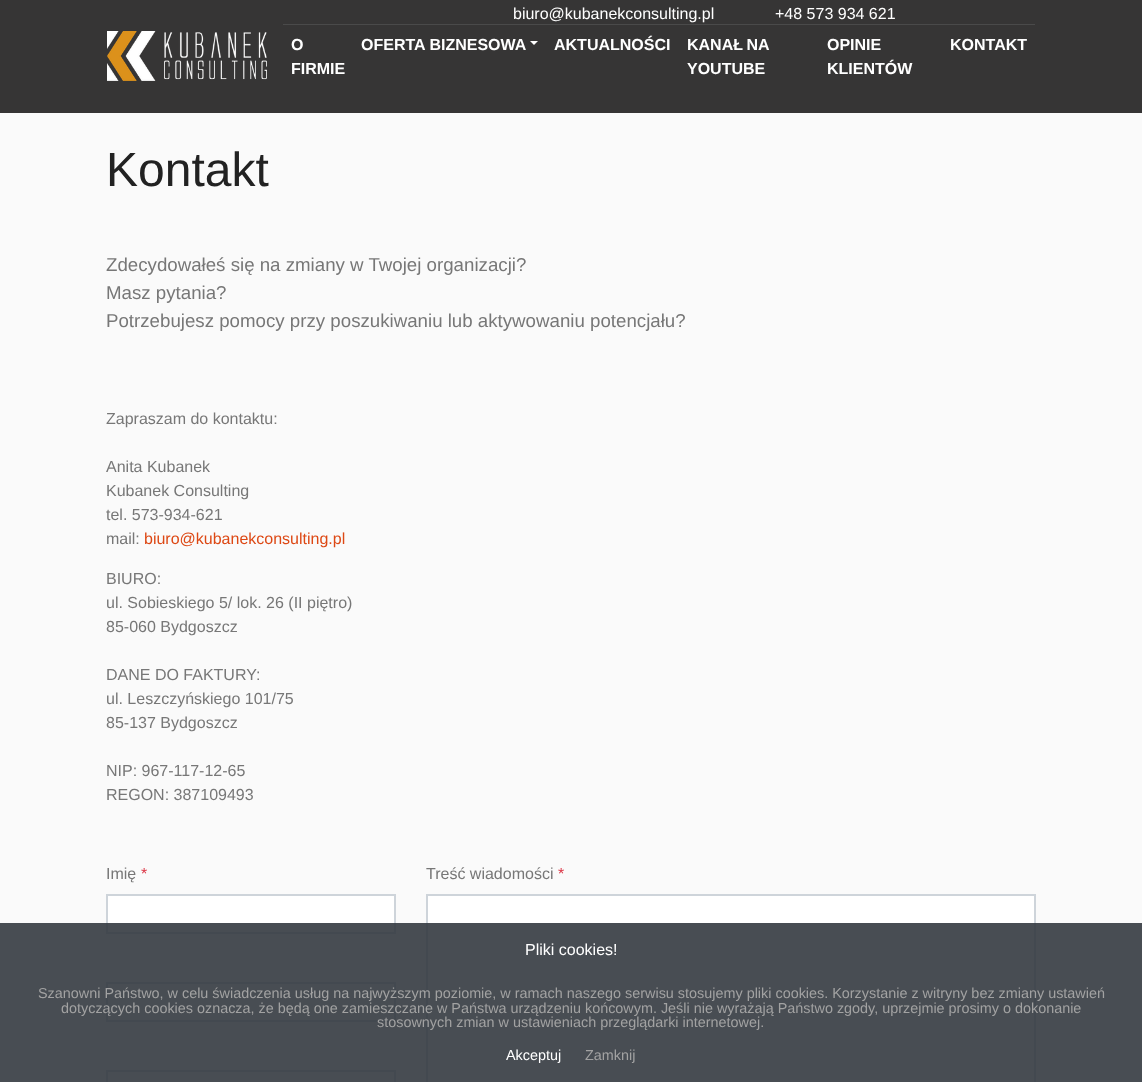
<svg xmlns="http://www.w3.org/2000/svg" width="1142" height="1082">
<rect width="100%" height="100%" fill="#fafafa"/>
<rect width="1142" height="113" fill="#363535"/>
<text x="513" y="19" style="font-family:Liberation Sans;font-size:16px;fill:#fff">biuro@kubanekconsulting.pl</text>
<text x="775" y="19" style="font-family:Liberation Sans;font-size:16px;fill:#fff">+48 573 934 621</text>
<image x="107" y="31" width="160" height="50" href="media/1.png"/>
<rect x="283" y="24" width="752" height="1" fill="#4a4a4a"/>
<text x="291" y="50" style="font-family:Liberation Sans;font-size:16px;font-weight:bold;fill:#fff">O</text>
<text x="291" y="74" style="font-family:Liberation Sans;font-size:16px;font-weight:bold;fill:#fff">FIRMIE</text>
<text x="361" y="50" style="font-family:Liberation Sans;font-size:16px;font-weight:bold;fill:#fff">OFERTA BIZNESOWA</text>
<path d="M530 41h8l-4 4z" fill="#fff"/>
<text x="554" y="50" style="font-family:Liberation Sans;font-size:16px;font-weight:bold;fill:#fff">AKTUALNOŚCI</text>
<text x="687" y="50" word-spacing="-1" style="font-family:Liberation Sans;font-size:16px;font-weight:bold;fill:#fff">KANAŁ NA</text>
<text x="687" y="74" style="font-family:Liberation Sans;font-size:16px;font-weight:bold;fill:#fff">YOUTUBE</text>
<text x="827" y="50" style="font-family:Liberation Sans;font-size:16px;font-weight:bold;fill:#fff">OPINIE</text>
<text x="827" y="74" style="font-family:Liberation Sans;font-size:16px;font-weight:bold;fill:#fff">KLIENTÓW</text>
<text x="950" y="50" style="font-family:Liberation Sans;font-size:16px;font-weight:bold;fill:#fff">KONTAKT</text>
<text x="106" y="186" style="font-family:Liberation Sans;font-size:48px;fill:#222">Kontakt</text>
<text x="106" y="271" style="font-family:Liberation Sans;font-size:18.7px;fill:#777">Zdecydowałeś się na zmiany w Twojej organizacji?</text>
<text x="106" y="299" style="font-family:Liberation Sans;font-size:18.7px;fill:#777">Masz pytania?</text>
<text x="106" y="327" style="font-family:Liberation Sans;font-size:18.7px;fill:#777">Potrzebujesz pomocy przy poszukiwaniu lub aktywowaniu potencjału?</text>
<text x="106" y="424" style="font-family:Liberation Sans;font-size:16px;fill:#777">Zapraszam do kontaktu:</text>
<text x="106" y="472" style="font-family:Liberation Sans;font-size:16px;fill:#777">Anita Kubanek</text>
<text x="106" y="496" style="font-family:Liberation Sans;font-size:16px;fill:#777">Kubanek Consulting</text>
<text x="106" y="520" style="font-family:Liberation Sans;font-size:16px;fill:#777">tel. 573-934-621</text>
<text x="106" y="544" style="font-family:Liberation Sans;font-size:16px;fill:#777">mail:</text>
<text x="144" y="544" style="font-family:Liberation Sans;font-size:16px;fill:#dd4814">biuro@kubanekconsulting.pl</text>
<text x="106" y="584" style="font-family:Liberation Sans;font-size:16px;fill:#777">BIURO:</text>
<text x="106" y="608" style="font-family:Liberation Sans;font-size:16px;fill:#777">ul. Sobieskiego 5/ lok. 26 (II piętro)</text>
<text x="106" y="632" style="font-family:Liberation Sans;font-size:16px;fill:#777">85-060 Bydgoszcz</text>
<text x="106" y="680" style="font-family:Liberation Sans;font-size:16px;fill:#777">DANE DO FAKTURY:</text>
<text x="106" y="704" style="font-family:Liberation Sans;font-size:16px;fill:#777">ul. Leszczyńskiego 101/75</text>
<text x="106" y="728" style="font-family:Liberation Sans;font-size:16px;fill:#777">85-137 Bydgoszcz</text>
<text x="106" y="776" style="font-family:Liberation Sans;font-size:16px;fill:#777">NIP: 967-117-12-65</text>
<text x="106" y="800" style="font-family:Liberation Sans;font-size:16px;fill:#777">REGON: 387109493</text>
<text x="106" y="879" style="font-family:Liberation Sans;font-size:16px;fill:#777">Imię</text>
<text x="141" y="879" style="font-family:Liberation Sans;font-size:16px;fill:#dc3545">*</text>
<rect x="107" y="895" width="288" height="38" fill="#fff" stroke="#ced4da" stroke-width="2"/>
<rect x="107" y="983" width="288" height="38" fill="#fff" stroke="#ced4da" stroke-width="2"/>
<rect x="107" y="1071" width="288" height="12" fill="#fff" stroke="#ced4da" stroke-width="2"/>
<text x="426" y="879" style="font-family:Liberation Sans;font-size:16px;fill:#777">Treść wiadomości</text>
<text x="558" y="879" style="font-family:Liberation Sans;font-size:16px;fill:#dc3545">*</text>
<rect x="427" y="895" width="608" height="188" fill="#fff" stroke="#ced4da" stroke-width="2"/>
<rect y="923" width="1142" height="159" fill="#343a40e6"/>
<text x="525" y="955" style="font-family:Liberation Sans;font-size:16px;fill:#fff">Pliki cookies!</text>
<text x="38" y="998" style="font-family:Liberation Sans;font-size:14.4px;fill:#a2a2a2">Szanowni Państwo, w celu świadczenia usług na najwyższym poziomie, w ramach naszego serwisu stosujemy pliki cookies. Korzystanie z witryny bez zmiany ustawień</text>
<text x="61" y="1013" style="font-family:Liberation Sans;font-size:14.4px;fill:#a2a2a2">dotyczących cookies oznacza, że będą one zamieszczane w Państwa urządzeniu końcowym. Jeśli nie wyrażają Państwo zgody, uprzejmie prosimy o dokonanie</text>
<text x="377" y="1027" style="font-family:Liberation Sans;font-size:14.4px;fill:#a2a2a2">stosownych zmian w ustawieniach przeglądarki internetowej.</text>
<text x="506" y="1060" style="font-family:Liberation Sans;font-size:14.4px;fill:#fff">Akceptuj</text>
<text x="585" y="1060" style="font-family:Liberation Sans;font-size:14.4px;fill:#a2a2a2">Zamknij</text>
</svg>
